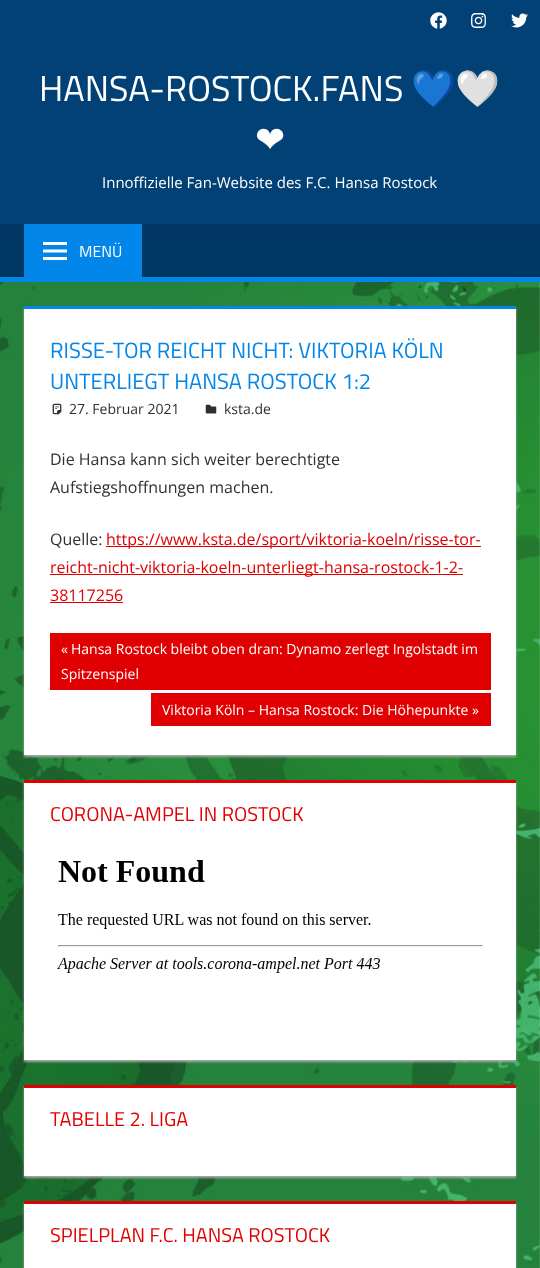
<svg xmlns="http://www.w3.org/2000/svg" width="540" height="1268">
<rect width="100%" height="100%" fill="#fff"/>
<image x="0" y="282" width="540" height="986" href="media/1.png"/>
<rect width="540" height="224" fill="#014175"/>
<image x="430" y="12" width="17" height="17" href="media/2.png"/>
<image x="471" y="13" width="15" height="15" href="media/3.png"/>
<image x="511" y="13" width="17" height="15" href="media/4.png"/>
<text x="39" y="101" style="font-family:Titillium Web;font-size:36px;fill:#fff">HANSA-ROSTOCK.FANS</text>
<text x="411" y="101" style="font-family:Noto Color Emoji;font-size:36px;fill:#fff">💙🤍</text>
<text x="255" y="152" style="font-family:DejaVu Sans;font-size:36px;fill:#fff">❤</text>
<text x="102" y="188" style="font-family:Open Sans;font-size:15px;fill:#fff">Innoffizielle Fan-Website des F.C. Hansa Rostock</text>
<rect y="225" width="540" height="52" fill="#013763"/>
<rect y="224" width="540" height="1" fill="#01345e"/>
<rect y="277" width="540" height="5" fill="#0386e9"/>
<rect x="24" y="224" width="118" height="53" fill="#0386e9"/>
<image x="43" y="242" width="24" height="18" href="media/5.png"/>
<text x="79" y="257" style="font-family:Titillium Web;font-size:16px;fill:#fff">MENÜ</text>
<rect x="24" y="308" width="492" height="449" fill="#aaa" filter="blur(1px)"/>
<rect x="24" y="309" width="492" height="446" fill="#fff"/>
<rect x="24" y="306" width="492" height="3" fill="#0386e9"/>
<text x="50" y="358" style="font-family:Titillium Web;font-size:22px;fill:#0386e9">RISSE-TOR REICHT NICHT: VIKTORIA KÖLN</text>
<text x="50" y="389" style="font-family:Titillium Web;font-size:22px;fill:#0386e9">UNTERLIEGT HANSA ROSTOCK 1:2</text>
<image x="52" y="403" width="10" height="12" href="media/6.png"/>
<text x="69" y="414" style="font-family:Open Sans;font-size:14px;fill:#303030">27. Februar 2021</text>
<image x="205" y="404" width="12" height="10" href="media/7.png"/>
<text x="224" y="414" style="font-family:Open Sans;font-size:14px;fill:#303030">ksta.de</text>
<text x="50" y="465" style="font-family:Open Sans;font-size:16px;fill:#303030">Die Hansa kann sich weiter berechtigte</text>
<text x="50" y="493" style="font-family:Open Sans;font-size:16px;fill:#303030">Aufstiegshoffnungen machen.</text>
<text x="50" y="545" style="font-family:Open Sans;font-size:16px;fill:#303030">Quelle:</text>
<rect x="106" y="546" width="375" height="1" fill="#e00002"/>
<text x="106" y="545" style="font-family:Open Sans;font-size:16px;fill:#e00002">https://www.ksta.de/sport/viktoria-koeln/risse-tor-</text>
<rect x="50" y="574" width="413" height="1" fill="#e00002"/>
<text x="50" y="573" style="font-family:Open Sans;font-size:16px;fill:#e00002">reicht-nicht-viktoria-koeln-unterliegt-hansa-rostock-1-2-</text>
<text x="50" y="601" style="font-family:Open Sans;font-size:16px;fill:#e00002">38117256</text>
<rect x="50" y="602" width="73" height="1" fill="#e00002"/>
<rect x="50" y="633" width="441" height="57" fill="#e00002"/>
<text x="61" y="654" style="font-family:Open Sans;font-size:14px;fill:#fff">«</text>
<text x="71" y="654" style="font-family:Open Sans;font-size:14px;fill:#fff">Hansa Rostock bleibt oben dran: Dynamo zerlegt Ingolstadt im</text>
<text x="61" y="679" style="font-family:Open Sans;font-size:14px;fill:#fff">Spitzenspiel</text>
<rect x="151" y="693" width="340" height="33" fill="#e00002"/>
<text x="162" y="715" style="font-family:Open Sans;font-size:14px;fill:#fff">Viktoria Köln – Hansa Rostock: Die Höhepunkte</text>
<text x="472" y="715" style="font-family:Open Sans;font-size:14px;fill:#fff">»</text>
<rect x="24" y="782" width="492" height="280" fill="#aaa" filter="blur(1px)"/>
<rect x="24" y="783" width="492" height="277" fill="#fff"/>
<rect x="24" y="780" width="492" height="3" fill="#e00002"/>
<text x="50" y="821" style="font-family:Titillium Web;font-size:20px;fill:#e00002">CORONA-AMPEL IN ROSTOCK</text>
<image x="57" y="860" width="426" height="113" href="media/8.png"/>
<rect x="24" y="1087" width="492" height="91" fill="#aaa" filter="blur(1px)"/>
<rect x="24" y="1088" width="492" height="88" fill="#fff"/>
<rect x="24" y="1085" width="492" height="3" fill="#e00002"/>
<text x="50" y="1126" style="font-family:Titillium Web;font-size:20px;fill:#e00002">TABELLE 2. LIGA</text>
<rect x="24" y="1203" width="492" height="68" fill="#aaa" filter="blur(1px)"/>
<rect x="24" y="1204" width="492" height="64" fill="#fff"/>
<rect x="24" y="1201" width="492" height="3" fill="#e00002"/>
<text x="50" y="1242" style="font-family:Titillium Web;font-size:20px;fill:#e00002">SPIELPLAN F.C. HANSA ROSTOCK</text>
</svg>
